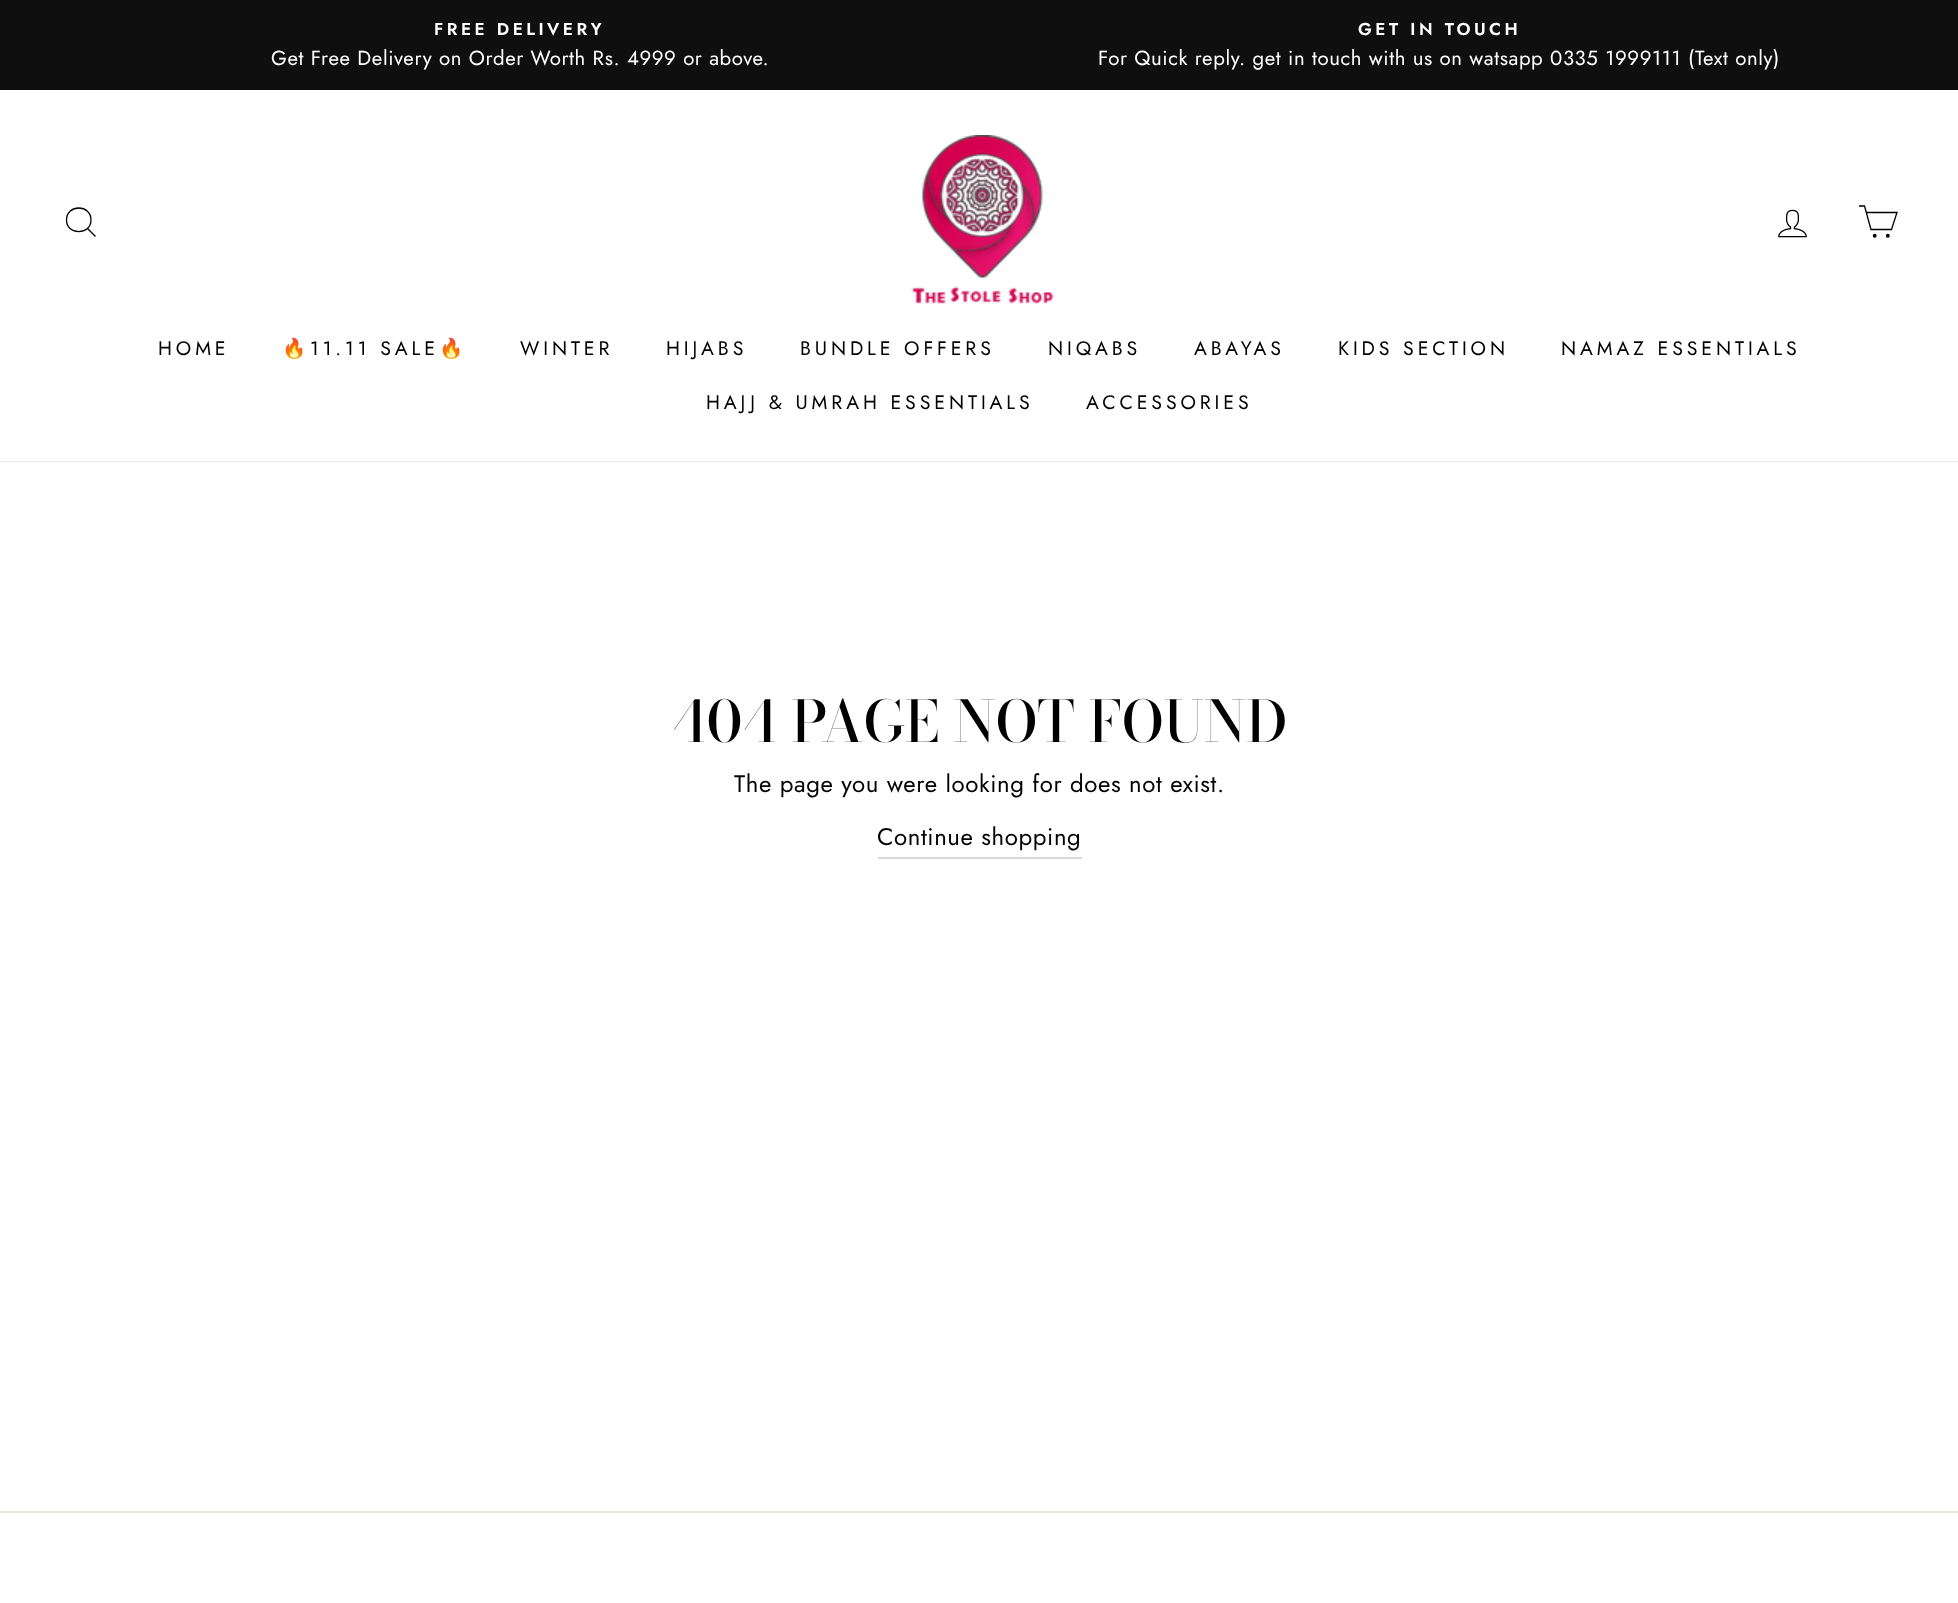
<svg xmlns="http://www.w3.org/2000/svg" width="1958" height="1603">
<rect width="100%" height="100%" fill="#fff"/>
<rect width="1958" height="90" fill="#0f0f0f"/>
<text x="434" y="35" style="font-family:Jost;font-size:17.25px;font-weight:600;letter-spacing:3.5px;fill:#fff">FREE DELIVERY</text>
<text x="271" y="65" style="font-family:Jost;font-size:20.4px;letter-spacing:0.6px;fill:#fff">Get Free Delivery on Order Worth Rs. 4999 or above.</text>
<text x="1358" y="35" style="font-family:Jost;font-size:17.25px;font-weight:600;letter-spacing:3.5px;fill:#fff">GET IN TOUCH</text>
<text x="1098" y="65" style="font-family:Jost;font-size:20.4px;letter-spacing:0.6px;fill:#fff">For Quick reply. get in touch with us on watsapp 0335 1999111 (Text only)</text>
<rect y="90" width="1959" height="371" fill="#00000033" filter="blur(1px)"/>
<rect y="90" width="1958" height="371" fill="#fff"/>
<path d="M91 220c0 15.5-24.5 15.5-24.5 0c0-16 24.5-16 24.5 0zm4.5 16.5l-8-8" fill="none" stroke="#000" stroke-width="1.3"/>
<image x="910" y="135" width="144" height="169" href="media/1.png"/>
<image x="1778" y="209" width="29" height="29" href="media/2.png"/>
<path d="M1866 212.5h31l-5.5 17h-20.5l-6.5-23.5h-5.5" fill="none" stroke="#000" stroke-width="1.3"/>
<circle cx="1874.7" cy="235.8" r="1.3" fill="#000" stroke="#000" stroke-width="1.3"/>
<circle cx="1887.8" cy="235.8" r="1.3" fill="#000" stroke="#000" stroke-width="1.3"/>
<text x="158" y="355" style="font-family:Jost;font-size:19.5px;letter-spacing:3.9px;fill:#000">HOME</text>
<text x="282" y="355" style="font-family:Noto Color Emoji;font-size:19.5px;letter-spacing:3.9px;fill:#000">🔥</text>
<text x="310" y="355" style="font-family:Jost;font-size:19.5px;letter-spacing:3.9px;fill:#000">11.11 SALE</text>
<text x="439" y="355" style="font-family:Noto Color Emoji;font-size:19.5px;letter-spacing:3.9px;fill:#000">🔥</text>
<text x="520" y="355" style="font-family:Jost;font-size:19.5px;letter-spacing:3.9px;fill:#000">WINTER</text>
<text x="666" y="355" style="font-family:Jost;font-size:19.5px;letter-spacing:3.9px;fill:#000">HIJABS</text>
<text x="800" y="355" style="font-family:Jost;font-size:19.5px;letter-spacing:3.9px;fill:#000">BUNDLE OFFERS</text>
<text x="1048" y="355" style="font-family:Jost;font-size:19.5px;letter-spacing:3.9px;fill:#000">NIQABS</text>
<text x="1194" y="355" style="font-family:Jost;font-size:19.5px;letter-spacing:3.9px;fill:#000">ABAYAS</text>
<text x="1338" y="355" style="font-family:Jost;font-size:19.5px;letter-spacing:3.9px;fill:#000">KIDS SECTION</text>
<text x="1561" y="355" style="font-family:Jost;font-size:19.5px;letter-spacing:3.9px;fill:#000">NAMAZ ESSENTIALS</text>
<text x="706" y="409" style="font-family:Jost;font-size:19.5px;letter-spacing:3.9px;fill:#000">HAJJ &amp; UMRAH ESSENTIALS</text>
<text x="1086" y="409" style="font-family:Jost;font-size:19.5px;letter-spacing:3.9px;fill:#000">ACCESSORIES</text>
<text x="672" y="742" style="font-family:Bodoni Moda;font-size:57px;font-weight:500;fill:#000">404 PAGE NOT FOUND</text>
<text x="734" y="792" style="font-family:Jost;font-size:24px;letter-spacing:0.6px;fill:#000">The page you were looking for does not exist.</text>
<rect x="878" y="857" width="204" height="2" fill="#d9d9d9"/>
<text x="877" y="845" style="font-family:Jost;font-size:24px;letter-spacing:0.6px;fill:#000">Continue shopping</text>
<rect y="1511" width="1958" height="2" fill="#e8e8e1"/>
</svg>
